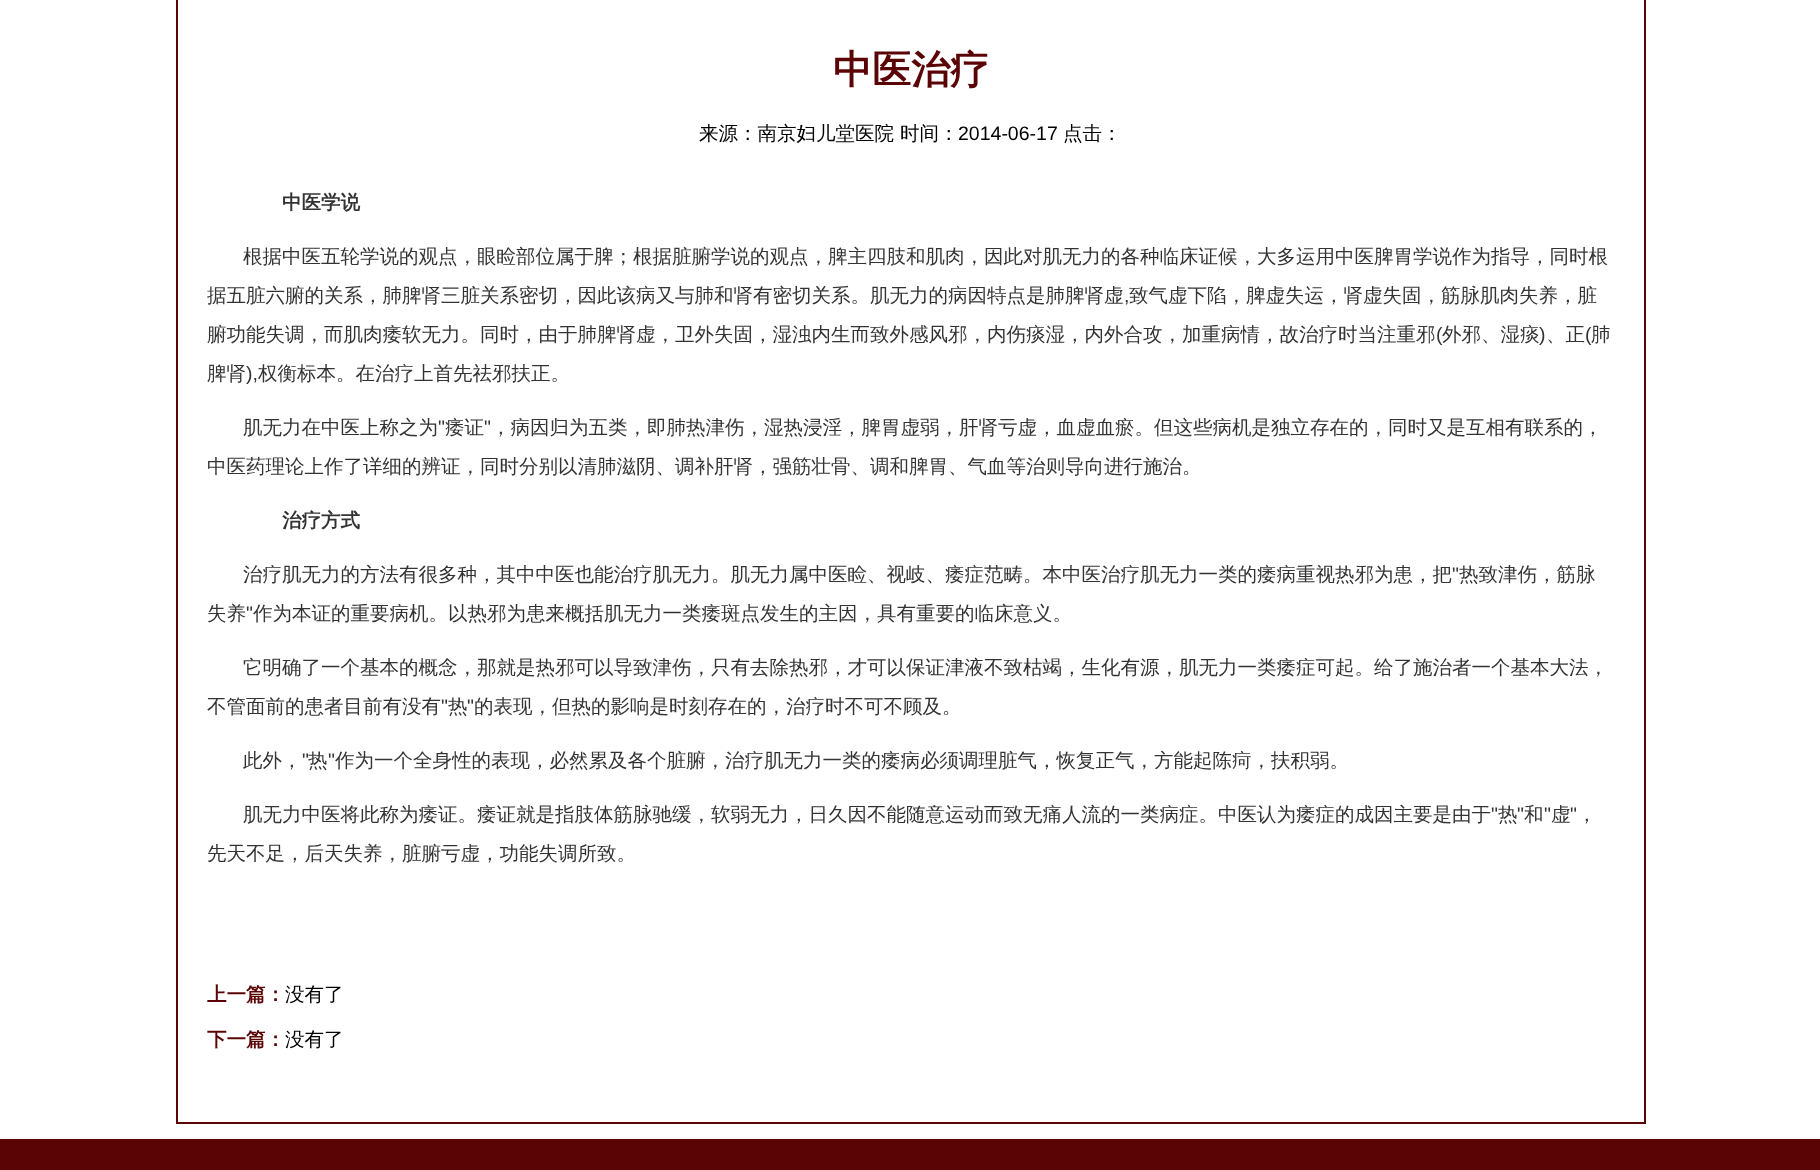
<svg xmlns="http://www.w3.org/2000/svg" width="1820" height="1170">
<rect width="100%" height="100%" fill="#fff"/>
<rect x="177" y="-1" width="1468" height="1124" fill="none" stroke="#5a0405" stroke-width="2"/>
<text x="833" y="83" style="font-family:WenQuanYi Zen Hei;font-size:39px;font-weight:bold;fill:#5a0405">中医治疗</text>
<text x="699" y="140" style="font-family:WenQuanYi Zen Hei;font-size:19.5px;font-weight:500;fill:#000">来源：南京妇儿堂医院</text>
<text x="900" y="140" style="font-family:WenQuanYi Zen Hei;font-size:19.5px;font-weight:500;fill:#000">时间：</text>
<text x="958" y="140" style="font-family:Liberation Sans;font-size:19.5px;fill:#000">2014-06-17</text>
<text x="1063" y="140" style="font-family:WenQuanYi Zen Hei;font-size:19.5px;font-weight:500;fill:#000">点击：</text>
<text x="282" y="209" style="font-family:WenQuanYi Zen Hei;font-size:19.5px;font-weight:bold;fill:#333">中医学说</text>
<text x="243" y="263" style="font-family:WenQuanYi Zen Hei;font-size:19.5px;font-weight:500;fill:#333">根据中医五轮学说的观点，眼睑部位属于脾；根据脏腑学说的观点，脾主四肢和肌肉，因此对肌无力的各种临床证候，大多运用中医脾胃学说作为指导，同时根</text>
<text x="207" y="302" style="font-family:WenQuanYi Zen Hei;font-size:19.5px;font-weight:500;fill:#333">据五脏六腑的关系，肺脾肾三脏关系密切，因此该病又与肺和肾有密切关系。肌无力的病因特点是肺脾肾虚</text>
<text x="1124" y="302" style="font-family:Liberation Sans;font-size:19.5px;fill:#333">,</text>
<text x="1129" y="302" style="font-family:WenQuanYi Zen Hei;font-size:19.5px;font-weight:500;fill:#333">致气虚下陷，脾虚失运，肾虚失固，筋脉肌肉失养，脏</text>
<text x="207" y="341" style="font-family:WenQuanYi Zen Hei;font-size:19.5px;font-weight:500;fill:#333">腑功能失调，而肌肉痿软无力。同时，由于肺脾肾虚，卫外失固，湿浊内生而致外感风邪，内伤痰湿，内外合攻，加重病情，故治疗时当注重邪</text>
<text x="1436" y="341" style="font-family:Liberation Sans;font-size:19.5px;fill:#333">(</text>
<text x="1442" y="341" style="font-family:WenQuanYi Zen Hei;font-size:19.5px;font-weight:500;fill:#333">外邪、湿痰</text>
<text x="1539" y="341" style="font-family:Liberation Sans;font-size:19.5px;fill:#333">)</text>
<text x="1546" y="341" style="font-family:WenQuanYi Zen Hei;font-size:19.5px;font-weight:500;fill:#333">、正</text>
<text x="1585" y="341" style="font-family:Liberation Sans;font-size:19.5px;fill:#333">(</text>
<text x="1591" y="341" style="font-family:WenQuanYi Zen Hei;font-size:19.5px;font-weight:500;fill:#333">肺</text>
<text x="207" y="380" style="font-family:WenQuanYi Zen Hei;font-size:19.5px;font-weight:500;fill:#333">脾肾</text>
<text x="246" y="380" style="font-family:Liberation Sans;font-size:19.5px;fill:#333">),</text>
<text x="258" y="380" style="font-family:WenQuanYi Zen Hei;font-size:19.5px;font-weight:500;fill:#333">权衡标本。在治疗上首先祛邪扶正。</text>
<text x="243" y="434" style="font-family:WenQuanYi Zen Hei;font-size:19.5px;font-weight:500;fill:#333">肌无力在中医上称之为</text>
<text x="438" y="434" style="font-family:Liberation Sans;font-size:19.5px;fill:#333">"</text>
<text x="445" y="434" style="font-family:WenQuanYi Zen Hei;font-size:19.5px;font-weight:500;fill:#333">痿证</text>
<text x="484" y="434" style="font-family:Liberation Sans;font-size:19.5px;fill:#333">"</text>
<text x="491" y="434" style="font-family:WenQuanYi Zen Hei;font-size:19.5px;font-weight:500;fill:#333">，病因归为五类，即肺热津伤，湿热浸淫，脾胃虚弱，肝肾亏虚，血虚血瘀。但这些病机是独立存在的，同时又是互相有联系的，</text>
<text x="207" y="473" style="font-family:WenQuanYi Zen Hei;font-size:19.5px;font-weight:500;fill:#333">中医药理论上作了详细的辨证，同时分别以清肺滋阴、调补肝肾，强筋壮骨、调和脾胃、气血等治则导向进行施治。</text>
<text x="282" y="527" style="font-family:WenQuanYi Zen Hei;font-size:19.5px;font-weight:bold;fill:#333">治疗方式</text>
<text x="243" y="581" style="font-family:WenQuanYi Zen Hei;font-size:19.5px;font-weight:500;fill:#333">治疗肌无力的方法有很多种，其中中医也能治疗肌无力。肌无力属中医睑、视岐、痿症范畴。本中医治疗肌无力一类的痿病重视热邪为患，把</text>
<text x="1452" y="581" style="font-family:Liberation Sans;font-size:19.5px;fill:#333">"</text>
<text x="1459" y="581" style="font-family:WenQuanYi Zen Hei;font-size:19.5px;font-weight:500;fill:#333">热致津伤，筋脉</text>
<text x="207" y="620" style="font-family:WenQuanYi Zen Hei;font-size:19.5px;font-weight:500;fill:#333">失养</text>
<text x="246" y="620" style="font-family:Liberation Sans;font-size:19.5px;fill:#333">"</text>
<text x="253" y="620" style="font-family:WenQuanYi Zen Hei;font-size:19.5px;font-weight:500;fill:#333">作为本证的重要病机。以热邪为患来概括肌无力一类痿斑点发生的主因，具有重要的临床意义。</text>
<text x="243" y="674" style="font-family:WenQuanYi Zen Hei;font-size:19.5px;font-weight:500;fill:#333">它明确了一个基本的概念，那就是热邪可以导致津伤，只有去除热邪，才可以保证津液不致枯竭，生化有源，肌无力一类痿症可起。给了施治者一个基本大法，</text>
<text x="207" y="713" style="font-family:WenQuanYi Zen Hei;font-size:19.5px;font-weight:500;fill:#333">不管面前的患者目前有没有</text>
<text x="441" y="713" style="font-family:Liberation Sans;font-size:19.5px;fill:#333">"</text>
<text x="448" y="713" style="font-family:WenQuanYi Zen Hei;font-size:19.5px;font-weight:500;fill:#333">热</text>
<text x="467" y="713" style="font-family:Liberation Sans;font-size:19.5px;fill:#333">"</text>
<text x="474" y="713" style="font-family:WenQuanYi Zen Hei;font-size:19.5px;font-weight:500;fill:#333">的表现，但热的影响是时刻存在的，治疗时不可不顾及。</text>
<text x="243" y="767" style="font-family:WenQuanYi Zen Hei;font-size:19.5px;font-weight:500;fill:#333">此外，</text>
<text x="302" y="767" style="font-family:Liberation Sans;font-size:19.5px;fill:#333">"</text>
<text x="308" y="767" style="font-family:WenQuanYi Zen Hei;font-size:19.5px;font-weight:500;fill:#333">热</text>
<text x="328" y="767" style="font-family:Liberation Sans;font-size:19.5px;fill:#333">"</text>
<text x="335" y="767" style="font-family:WenQuanYi Zen Hei;font-size:19.5px;font-weight:500;fill:#333">作为一个全身性的表现，必然累及各个脏腑，治疗肌无力一类的痿病必须调理脏气，恢复正气，方能起陈疴，扶积弱。</text>
<text x="243" y="821" style="font-family:WenQuanYi Zen Hei;font-size:19.5px;font-weight:500;fill:#333">肌无力中医将此称为痿证。痿证就是指肢体筋脉驰缓，软弱无力，日久因不能随意运动而致无痛人流的一类病症。中医认为痿症的成因主要是由于</text>
<text x="1491" y="821" style="font-family:Liberation Sans;font-size:19.5px;fill:#333">"</text>
<text x="1498" y="821" style="font-family:WenQuanYi Zen Hei;font-size:19.5px;font-weight:500;fill:#333">热</text>
<text x="1517" y="821" style="font-family:Liberation Sans;font-size:19.5px;fill:#333">"</text>
<text x="1524" y="821" style="font-family:WenQuanYi Zen Hei;font-size:19.5px;font-weight:500;fill:#333">和</text>
<text x="1544" y="821" style="font-family:Liberation Sans;font-size:19.5px;fill:#333">"</text>
<text x="1551" y="821" style="font-family:WenQuanYi Zen Hei;font-size:19.5px;font-weight:500;fill:#333">虚</text>
<text x="1570" y="821" style="font-family:Liberation Sans;font-size:19.5px;fill:#333">"</text>
<text x="1577" y="821" style="font-family:WenQuanYi Zen Hei;font-size:19.5px;font-weight:500;fill:#333">，</text>
<text x="207" y="860" style="font-family:WenQuanYi Zen Hei;font-size:19.5px;font-weight:500;fill:#333">先天不足，后天失养，脏腑亏虚，功能失调所致。</text>
<text x="207" y="1001" style="font-family:WenQuanYi Zen Hei;font-size:19.5px;font-weight:bold;fill:#5a0405">上一篇：</text>
<text x="285" y="1001" style="font-family:WenQuanYi Zen Hei;font-size:19.5px;font-weight:500;fill:#000">没有了</text>
<text x="207" y="1046" style="font-family:WenQuanYi Zen Hei;font-size:19.5px;font-weight:bold;fill:#5a0405">下一篇：</text>
<text x="285" y="1046" style="font-family:WenQuanYi Zen Hei;font-size:19.5px;font-weight:500;fill:#000">没有了</text>
<rect y="1139" width="1820" height="31" fill="#5a0405"/>
</svg>
